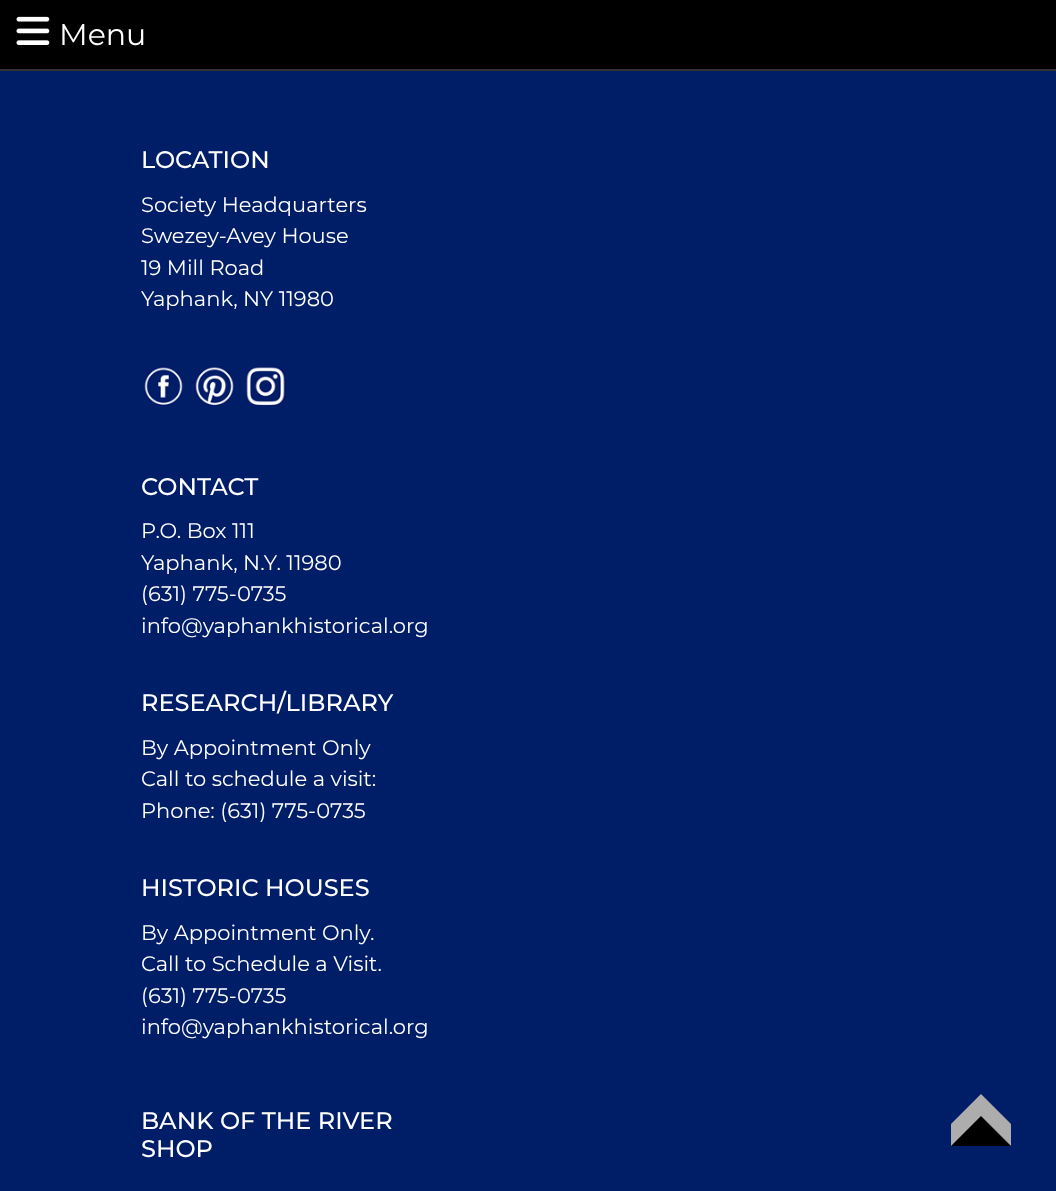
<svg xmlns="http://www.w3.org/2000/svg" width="1056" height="1191">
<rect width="100%" height="100%" fill="#001d68"/>
<rect width="1056" height="69" fill="#000"/>
<rect y="69" width="1056" height="2" fill="#333"/>
<image x="16" y="16" width="34" height="29" href="media/1.png"/>
<text x="59" y="45" style="font-family:Montserrat;font-size:30px;fill:#fff">Menu</text>
<text x="141" y="168" style="font-family:Montserrat;font-size:24px;font-weight:500;fill:#fff">LOCATION</text>
<text x="141" y="212" style="font-family:Montserrat;font-size:21px;fill:#fff">Society Headquarters</text>
<text x="141" y="243" style="font-family:Montserrat;font-size:21px;fill:#fff">Swezey-Avey House</text>
<text x="141" y="275" style="font-family:Montserrat;font-size:21px;fill:#fff">19 Mill Road</text>
<text x="141" y="306" style="font-family:Montserrat;font-size:21px;fill:#fff">Yaphank, NY 11980</text>
<image x="144" y="366" width="39" height="40" href="media/2.png"/>
<image x="194" y="366" width="41" height="40" href="media/3.png"/>
<image x="246" y="366" width="40" height="40" href="media/4.png"/>
<text x="141" y="495" style="font-family:Montserrat;font-size:24px;font-weight:500;fill:#fff">CONTACT</text>
<text x="141" y="538" style="font-family:Montserrat;font-size:21px;fill:#fff">P.O. Box 111</text>
<text x="141" y="570" style="font-family:Montserrat;font-size:21px;fill:#fff">Yaphank, N.Y. 11980</text>
<text x="141" y="601" style="font-family:Montserrat;font-size:21px;fill:#fff">(631) 775-0735</text>
<text x="141" y="633" style="font-family:Montserrat;font-size:21px;fill:#fff">info@yaphankhistorical.org</text>
<text x="141" y="711" style="font-family:Montserrat;font-size:24px;font-weight:500;fill:#fff">RESEARCH/LIBRARY</text>
<text x="141" y="755" style="font-family:Montserrat;font-size:21px;fill:#fff">By Appointment Only</text>
<text x="141" y="786" style="font-family:Montserrat;font-size:21px;fill:#fff">Call to schedule a visit:</text>
<text x="141" y="818" style="font-family:Montserrat;font-size:21px;fill:#fff">Phone: (631) 775-0735</text>
<text x="141" y="896" style="font-family:Montserrat;font-size:24px;font-weight:500;fill:#fff">HISTORIC HOUSES</text>
<text x="141" y="940" style="font-family:Montserrat;font-size:21px;fill:#fff">By Appointment Only.</text>
<text x="141" y="971" style="font-family:Montserrat;font-size:21px;fill:#fff">Call to Schedule a Visit.</text>
<text x="141" y="1003" style="font-family:Montserrat;font-size:21px;fill:#fff">(631) 775-0735</text>
<text x="141" y="1034" style="font-family:Montserrat;font-size:21px;fill:#fff">info@yaphankhistorical.org</text>
<text x="141" y="1129" style="font-family:Montserrat;font-size:24px;font-weight:500;fill:#fff">BANK OF THE RIVER</text>
<text x="141" y="1157" style="font-family:Montserrat;font-size:24px;font-weight:500;fill:#fff">SHOP</text>
<rect x="951" y="1124" width="60" height="22" fill="#adadad"/>
<path d="M1011 1124h-60l30-30z" fill="#adadad"/>
<path d="M1011 1146h-60l30-30z" fill="#000"/>
</svg>
